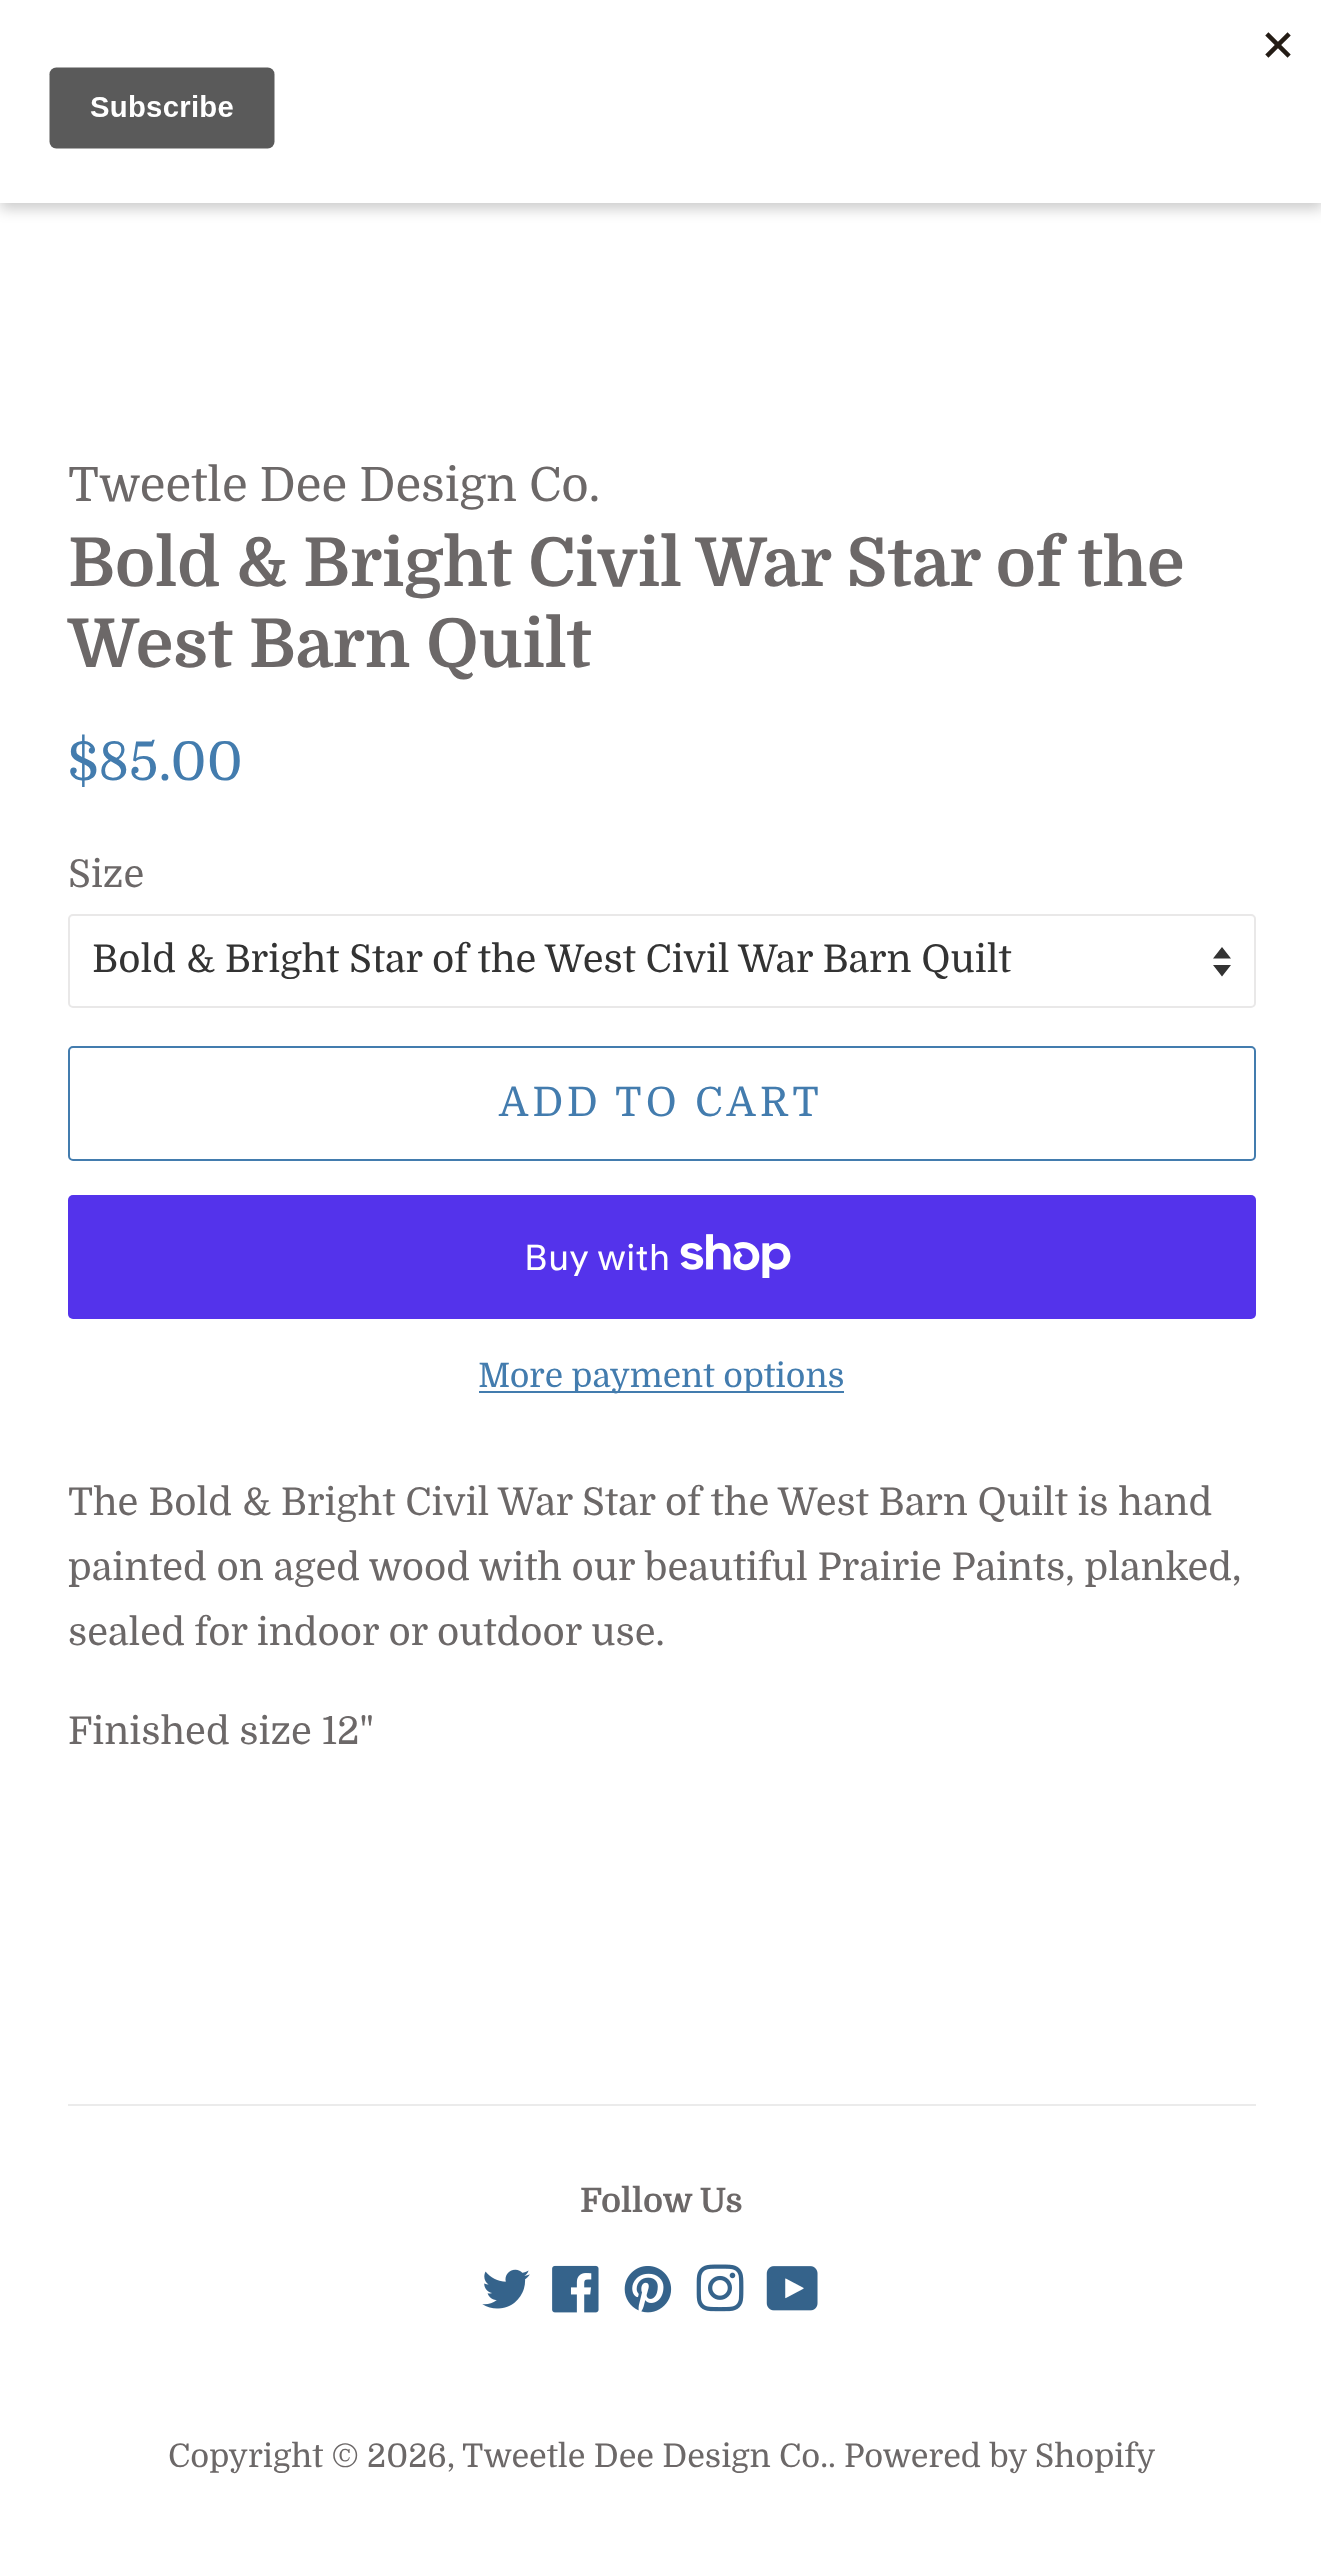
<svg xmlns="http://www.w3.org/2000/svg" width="1321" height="2551">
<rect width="100%" height="100%" fill="#fff"/>
<rect y="7" width="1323" height="202" fill="#00000033" filter="blur(7px)"/>
<rect width="1321" height="203" fill="#fff"/>
<image x="49" y="32" width="1242" height="117" href="media/1.png"/>
<text x="68" y="501" style="font-family:Domine;font-size:47.25px;fill:#6c6868">Tweetle Dee Design Co.</text>
<text x="68" y="586" style="font-family:Domine;font-size:67.5px;font-weight:bold;fill:#6c6868">Bold &amp; Bright Civil War Star of the</text>
<text x="68" y="667" style="font-family:Domine;font-size:67.5px;font-weight:bold;fill:#6c6868">West Barn Quilt</text>
<text x="68" y="780" style="font-family:Domine;font-size:53.5px;fill:#437cae">$85.00</text>
<text x="68" y="887" style="font-family:Domine;font-size:38.25px;fill:#6c6868">Size</text>
<path d="M1213 965l9 11.5l9-11.5zm9-18l-9 11.5h18z" fill="#333"/>
<rect x="69" y="915" width="1186" height="92" rx="4" fill="none" stroke="#e9e8e8" stroke-width="2"/>
<text x="92" y="972" style="font-family:Domine;font-size:38.25px;fill:#333">Bold &amp; Bright Star of the West Civil War Barn Quilt</text>
<rect x="69" y="1047" width="1186" height="113" rx="4" fill="none" stroke="#437cae" stroke-width="2"/>
<text x="499" y="1116" style="font-family:Domine;font-size:40.5px;letter-spacing:4px;fill:#437cae">ADD TO CART</text>
<rect x="68" y="1195" width="1188" height="124" rx="5" fill="#5433eb"/>
<text x="524" y="1270" style="font-family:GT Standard;font-size:36px;fill:#fff">Buy with</text>
<image x="680" y="1234" width="111" height="44" href="media/2.png"/>
<rect x="479" y="1391" width="365" height="2" fill="#437cae"/>
<text x="478" y="1387" style="font-family:Domine;font-size:33.75px;fill:#437cae">More payment options</text>
<text x="68" y="1515" style="font-family:Domine;font-size:38.25px;fill:#6c6868">The Bold &amp; Bright Civil War Star of the West Barn Quilt is hand</text>
<text x="68" y="1580" style="font-family:Domine;font-size:38.25px;fill:#6c6868">painted on aged wood with our beautiful Prairie Paints, planked,</text>
<text x="68" y="1645" style="font-family:Domine;font-size:38.25px;fill:#6c6868">sealed for indoor or outdoor use.</text>
<text x="68" y="1744" style="font-family:Domine;font-size:38.25px;fill:#6c6868">Finished size 12"</text>
<rect x="68" y="2104" width="1188" height="2" fill="#ebebeb"/>
<text x="580" y="2212" style="font-family:Domine;font-size:33.75px;font-weight:bold;fill:#6c6868">Follow Us</text>
<image x="482" y="2269" width="48" height="40" href="media/3.png"/>
<image x="552" y="2265" width="47" height="48" href="media/4.png"/>
<image x="624" y="2266" width="48" height="47" href="media/5.png"/>
<image x="696" y="2264" width="48" height="48" href="media/6.png"/>
<image x="766" y="2266" width="52" height="45" href="media/7.png"/>
<text x="168" y="2467" style="font-family:Domine;font-size:32.5px;fill:#6c6868">Copyright © 2026,</text>
<text x="462" y="2467" style="font-family:Domine;font-size:32.5px;fill:#6c6868">Tweetle Dee Design Co.</text>
<text x="828" y="2467" style="font-family:Domine;font-size:32.5px;fill:#6c6868">. Powered by Shopify</text>
</svg>
